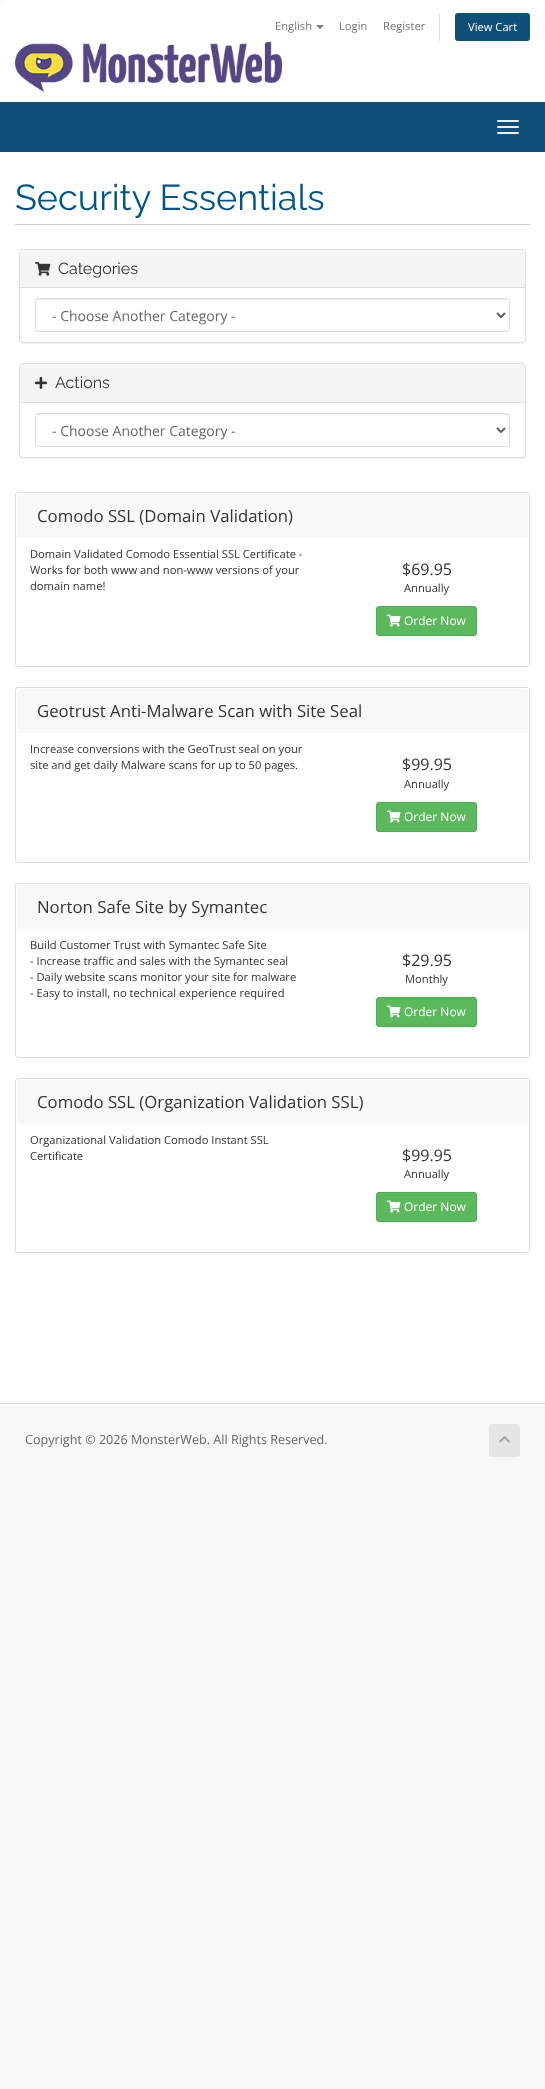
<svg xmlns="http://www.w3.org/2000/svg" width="545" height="2089">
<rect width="100%" height="100%" fill="#f8f8f8"/>
<path d="M5 0h535c3 0 5 2 5 5v97h-545v-97c0-3 2-5 5-5z" fill="#fff"/>
<text x="275" y="30" style="font-family:Open Sans;font-size:11.2px;fill:#777">English</text>
<path d="M316 25h8l-4 4z" fill="#777"/>
<text x="339" y="30" style="font-family:Open Sans;font-size:11.2px;fill:#777">Login</text>
<text x="383" y="30" style="font-family:Open Sans;font-size:11.2px;fill:#777">Register</text>
<rect x="439" y="13" width="1" height="28" fill="#ddd"/>
<rect x="455" y="13" width="75" height="28" rx="3" fill="#0e5077"/>
<text x="468" y="31" style="font-family:Open Sans;font-size:11.2px;fill:#fff">View Cart</text>
<image x="15" y="42" width="267" height="50" href="media/1.png"/>
<rect y="102" width="545" height="50" fill="#0e5077"/>
<rect x="497" y="120" width="22" height="2" rx="1" fill="#eee"/>
<rect x="497" y="126" width="22" height="2" rx="1" fill="#eee"/>
<rect x="497" y="132" width="22" height="2" rx="1" fill="#eee"/>
<rect y="152" width="545" height="1251" fill="#fff"/>
<rect x="15" y="224" width="515" height="1" fill="#ccc"/>
<text x="15" y="210" style="font-family:Raleway;font-size:36px;fill:#058">Security Essentials</text>
<rect x="19" y="250" width="507" height="94" rx="4" fill="#0000000d" filter="blur(0.5px)"/>
<rect x="19.5" y="249.5" width="506" height="93" rx="3.5" fill="#fff" stroke="#ddd"/>
<path d="M23 250h499c1.5 0 3 1.5 3 3v35h-505v-35c0-1.5 1.5-3 3-3z" fill="#f5f5f5"/>
<rect x="20" y="287" width="505" height="1" fill="#ddd"/>
<image x="35" y="262" width="16" height="14" href="media/2.png"/>
<text x="58" y="274" style="font-family:Raleway;font-size:16px;fill:#333">Categories</text>
<path d="M38 300h469c1 0 2 1 2 2v-2l-2-1h-469c-2 0-2 2-2 3c0-1 1-2 2-2z" fill="#ececec"/>
<rect x="35.5" y="298.5" width="474" height="33" rx="2.5" fill="none" stroke="#ddd"/>
<path d="M497 313l4 4l4-4" fill="none" stroke="#626262" stroke-width="2"/>
<text x="52" y="321" style="font-family:Open Sans;font-size:14px;fill:#666">- Choose Another Category -</text>
<rect x="19" y="364" width="507" height="95" rx="4" fill="#0000000d" filter="blur(0.5px)"/>
<rect x="19.5" y="363.5" width="506" height="94" rx="3.5" fill="#fff" stroke="#ddd"/>
<path d="M23 364h499c1.5 0 3 1.5 3 3v36h-505v-36c0-1.5 1.5-3 3-3z" fill="#f5f5f5"/>
<rect x="20" y="402" width="505" height="1" fill="#ddd"/>
<image x="35" y="376" width="12" height="13" href="media/3.png"/>
<text x="55" y="388" style="font-family:Raleway;font-size:16px;fill:#333">Actions</text>
<path d="M38 415h469c1 0 2 1 2 2v-2l-2-1h-469c-2 0-2 2-2 3c0-1 1-2 2-2z" fill="#ececec"/>
<rect x="35.5" y="413.5" width="474" height="33" rx="2.5" fill="none" stroke="#ddd"/>
<path d="M497 428l4 4l4-4" fill="none" stroke="#626262" stroke-width="2"/>
<text x="52" y="436" style="font-family:Open Sans;font-size:14px;fill:#666">- Choose Another Category -</text>
<rect x="15.5" y="492.5" width="514" height="174" rx="2.5" fill="none" stroke="#ddd"/>
<path d="M20 494h505c1.5 0 3 1.5 3 3v41h-511v-41c0-1.5 1.5-3 3-3z" fill="#f8f8f8"/>
<text x="37" y="522" style="font-family:Open Sans;font-size:16.75px;fill:#333">Comodo SSL (Domain Validation)</text>
<text x="30" y="558" style="font-family:Open Sans;font-size:11.2px;fill:#333">Domain Validated Comodo Essential SSL Certificate -</text>
<text x="30" y="574" style="font-family:Open Sans;font-size:11.2px;fill:#333">Works for both www and non-www versions of your</text>
<text x="30" y="590" style="font-family:Open Sans;font-size:11.2px;fill:#333">domain name!</text>
<text x="402" y="575" style="font-family:Open Sans;font-size:16px;fill:#333">$69.95</text>
<text x="404" y="592" style="font-family:Open Sans;font-size:11.2px;fill:#333">Annually</text>
<rect x="376.5" y="606.5" width="100" height="29" rx="2.5" fill="#5cb85c" stroke="#4cae4c"/>
<image x="387" y="614" width="14" height="13" href="media/4.png"/>
<text x="404" y="625" style="font-family:Open Sans;font-size:12px;fill:#fff">Order Now</text>
<rect x="15.5" y="687.5" width="514" height="175" rx="2.5" fill="none" stroke="#ddd"/>
<path d="M20 689h505c1.5 0 3 1.5 3 3v41h-511v-41c0-1.5 1.5-3 3-3z" fill="#f8f8f8"/>
<text x="37" y="717" style="font-family:Open Sans;font-size:16.75px;fill:#333">Geotrust Anti-Malware Scan with Site Seal</text>
<text x="30" y="753" style="font-family:Open Sans;font-size:11.2px;fill:#333">Increase conversions with the GeoTrust seal on your</text>
<text x="30" y="769" style="font-family:Open Sans;font-size:11.2px;fill:#333">site and get daily Malware scans for up to 50 pages.</text>
<text x="402" y="770" style="font-family:Open Sans;font-size:16px;fill:#333">$99.95</text>
<text x="404" y="788" style="font-family:Open Sans;font-size:11.2px;fill:#333">Annually</text>
<rect x="376.5" y="802.5" width="100" height="29" rx="2.5" fill="#5cb85c" stroke="#4cae4c"/>
<image x="387" y="810" width="14" height="13" href="media/4.png"/>
<text x="404" y="821" style="font-family:Open Sans;font-size:12px;fill:#fff">Order Now</text>
<rect x="15.5" y="883.5" width="514" height="174" rx="2.5" fill="none" stroke="#ddd"/>
<path d="M20 885h505c1.5 0 3 1.5 3 3v41h-511v-41c0-1.5 1.5-3 3-3z" fill="#f8f8f8"/>
<text x="37" y="913" style="font-family:Open Sans;font-size:16.75px;fill:#333">Norton Safe Site by Symantec</text>
<text x="30" y="949" style="font-family:Open Sans;font-size:11.2px;fill:#333">Build Customer Trust with Symantec Safe Site</text>
<text x="30" y="965" style="font-family:Open Sans;font-size:11.2px;fill:#333">- Increase traffic and sales with the Symantec seal</text>
<text x="30" y="981" style="font-family:Open Sans;font-size:11.2px;fill:#333">- Daily website scans monitor your site for malware</text>
<text x="30" y="997" style="font-family:Open Sans;font-size:11.2px;fill:#333">- Easy to install, no technical experience required</text>
<text x="402" y="966" style="font-family:Open Sans;font-size:16px;fill:#333">$29.95</text>
<text x="405" y="983" style="font-family:Open Sans;font-size:11.2px;fill:#333">Monthly</text>
<rect x="376.5" y="997.5" width="100" height="29" rx="2.5" fill="#5cb85c" stroke="#4cae4c"/>
<image x="387" y="1005" width="14" height="13" href="media/4.png"/>
<text x="404" y="1016" style="font-family:Open Sans;font-size:12px;fill:#fff">Order Now</text>
<rect x="15.5" y="1078.5" width="514" height="174" rx="2.5" fill="none" stroke="#ddd"/>
<path d="M20 1080h505c1.5 0 3 1.5 3 3v41h-511v-41c0-1.5 1.5-3 3-3z" fill="#f8f8f8"/>
<text x="37" y="1108" style="font-family:Open Sans;font-size:16.75px;fill:#333">Comodo SSL (Organization Validation SSL)</text>
<text x="30" y="1144" style="font-family:Open Sans;font-size:11.2px;fill:#333">Organizational Validation Comodo Instant SSL</text>
<text x="30" y="1160" style="font-family:Open Sans;font-size:11.2px;fill:#333">Certificate</text>
<text x="402" y="1161" style="font-family:Open Sans;font-size:16px;fill:#333">$99.95</text>
<text x="404" y="1178" style="font-family:Open Sans;font-size:11.2px;fill:#333">Annually</text>
<rect x="376.5" y="1192.5" width="100" height="29" rx="2.5" fill="#5cb85c" stroke="#4cae4c"/>
<image x="387" y="1200" width="14" height="13" href="media/4.png"/>
<text x="404" y="1211" style="font-family:Open Sans;font-size:12px;fill:#fff">Order Now</text>
<rect y="1403" width="545" height="1" fill="#ddd"/>
<text x="25" y="1444" style="font-family:Open Sans;font-size:12.6px;fill:#666">Copyright © 2026 MonsterWeb. All Rights Reserved.</text>
<rect x="489" y="1424" width="31" height="33" rx="3" fill="#e5e5e5"/>
<image x="499" y="1436" width="11" height="7" href="media/5.png"/>
</svg>
